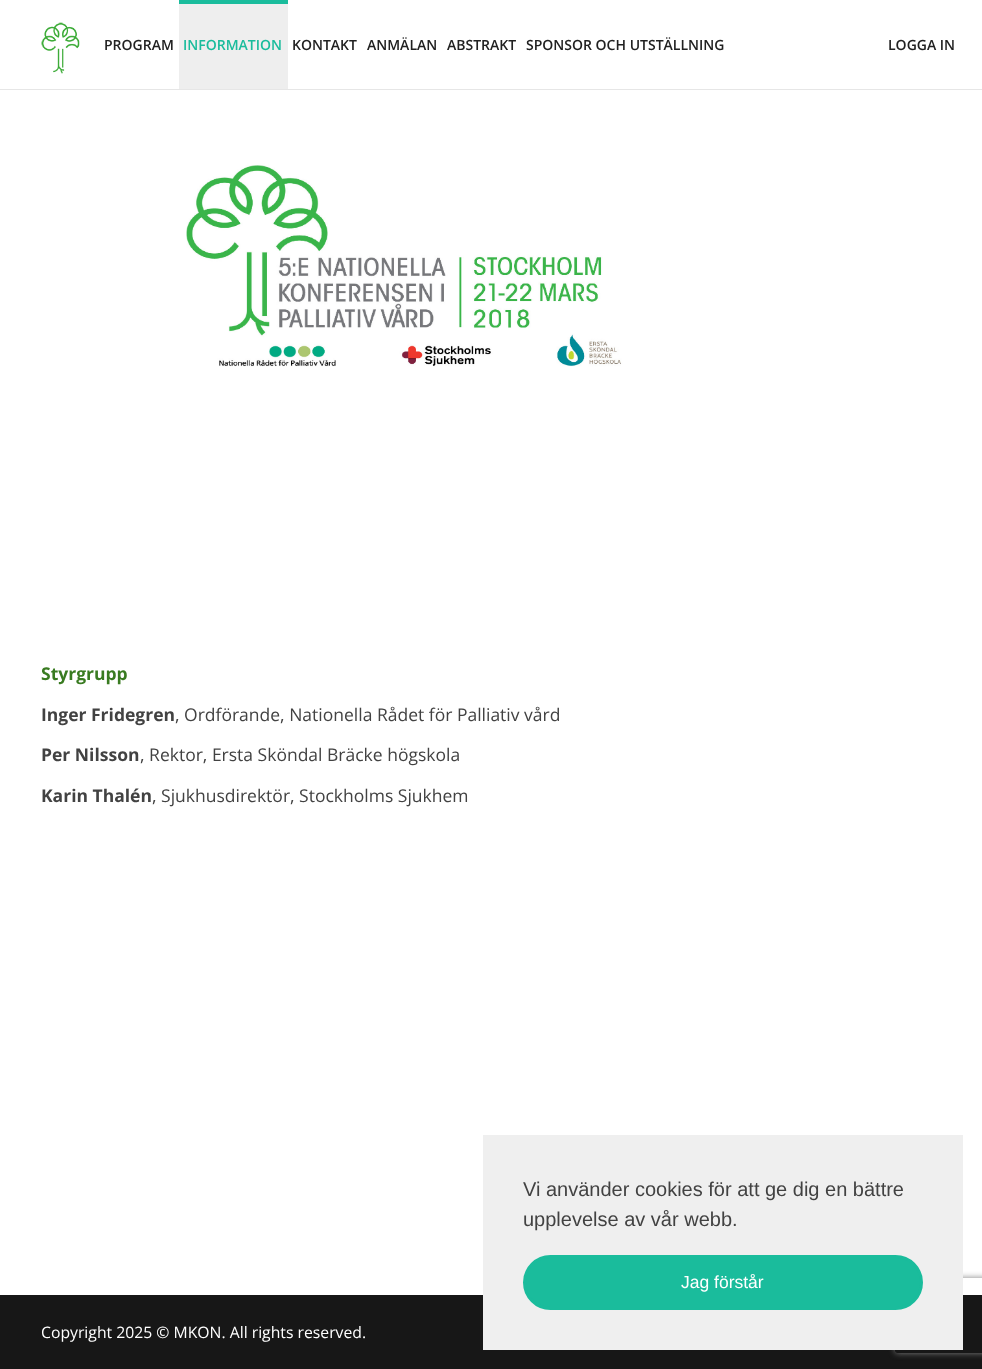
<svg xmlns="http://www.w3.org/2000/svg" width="982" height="1369">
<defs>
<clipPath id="clip1"><path d="M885 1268h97v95h-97zm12.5 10h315c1.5 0 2.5 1 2.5 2.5v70c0 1.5-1 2.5-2.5 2.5h-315c-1.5 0-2.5-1-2.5-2.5v-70c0-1.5 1-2.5 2.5-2.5z" clip-rule="evenodd"/></clipPath>
</defs>
<rect width="100%" height="100%" fill="#fff"/>
<image x="0" y="0" width="982" height="546" href="media/1.png"/>
<rect y="89" width="982" height="1" fill="#e6e6e6"/>
<image x="41" y="22" width="39" height="52" href="media/2.png"/>
<text x="104" y="50" style="font-family:Open Sans;font-size:14px;font-weight:600;fill:#212121">PROGRAM</text>
<rect x="179" y="4" width="109" height="85" fill="#eee"/>
<rect x="179" width="109" height="4" fill="#1abc9c"/>
<text x="183" y="50" style="font-family:Open Sans;font-size:14px;font-weight:600;fill:#1abc9c">INFORMATION</text>
<text x="292" y="50" style="font-family:Open Sans;font-size:14px;font-weight:600;fill:#212121">KONTAKT</text>
<text x="367" y="50" style="font-family:Open Sans;font-size:14px;font-weight:600;fill:#212121">ANMÄLAN</text>
<text x="447" y="50" style="font-family:Open Sans;font-size:14px;font-weight:600;fill:#212121">ABSTRAKT</text>
<text x="526" y="50" style="font-family:Open Sans;font-size:14px;font-weight:600;fill:#212121">SPONSOR OCH UTSTÄLLNING</text>
<text x="888" y="50" style="font-family:Open Sans;font-size:14px;font-weight:600;fill:#212121">LOGGA IN</text>
<text x="41" y="680" style="font-family:Open Sans;font-size:17.5px;font-weight:bold;fill:#397b21">Styrgrupp</text>
<text x="41" y="721" style="font-family:Open Sans;font-size:17.5px;font-weight:bold;fill:#424242">Inger Fridegren</text>
<text x="175" y="721" style="font-family:Open Sans;font-size:17.5px;fill:#424242">, Ordförande, Nationella Rådet för Palliativ vård</text>
<text x="41" y="761" style="font-family:Open Sans;font-size:17.5px;font-weight:bold;fill:#424242">Per Nilsson</text>
<text x="140" y="761" style="font-family:Open Sans;font-size:17.5px;fill:#424242">, Rektor, Ersta Sköndal Bräcke högskola</text>
<text x="41" y="802" style="font-family:Open Sans;font-size:17.5px;font-weight:bold;fill:#424242">Karin Thalén</text>
<text x="152" y="802" style="font-family:Open Sans;font-size:17.5px;fill:#424242">, Sjukhusdirektör, Stockholms Sjukhem</text>
<rect y="1295" width="982" height="74" fill="#171717"/>
<g clip-path="url(#clip1)">
<rect x="895" y="1278" width="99" height="75" rx="2.5" fill="#808080" filter="blur(3px)"/>
</g>
<rect x="483" y="1135" width="480" height="215" fill="#efefef"/>
<text x="523" y="1196" style="font-family:Liberation Sans;font-size:20px;fill:#424242">Vi använder cookies för att ge dig en bättre</text>
<text x="523" y="1226" style="font-family:Liberation Sans;font-size:20px;fill:#424242">upplevelse av vår webb.</text>
<rect x="524.5" y="1256.5" width="397" height="52" rx="26" fill="#1abc9c" stroke="#1abc9c" stroke-width="3"/>
<text x="681" y="1288" style="font-family:Liberation Sans;font-size:17.5px;fill:#fff">Jag förstår</text>
<text x="41" y="1338" style="font-family:Open Sans;font-size:15.75px;fill:#fff">Copyright 2025 © MKON. All rights reserved.</text>
</svg>
